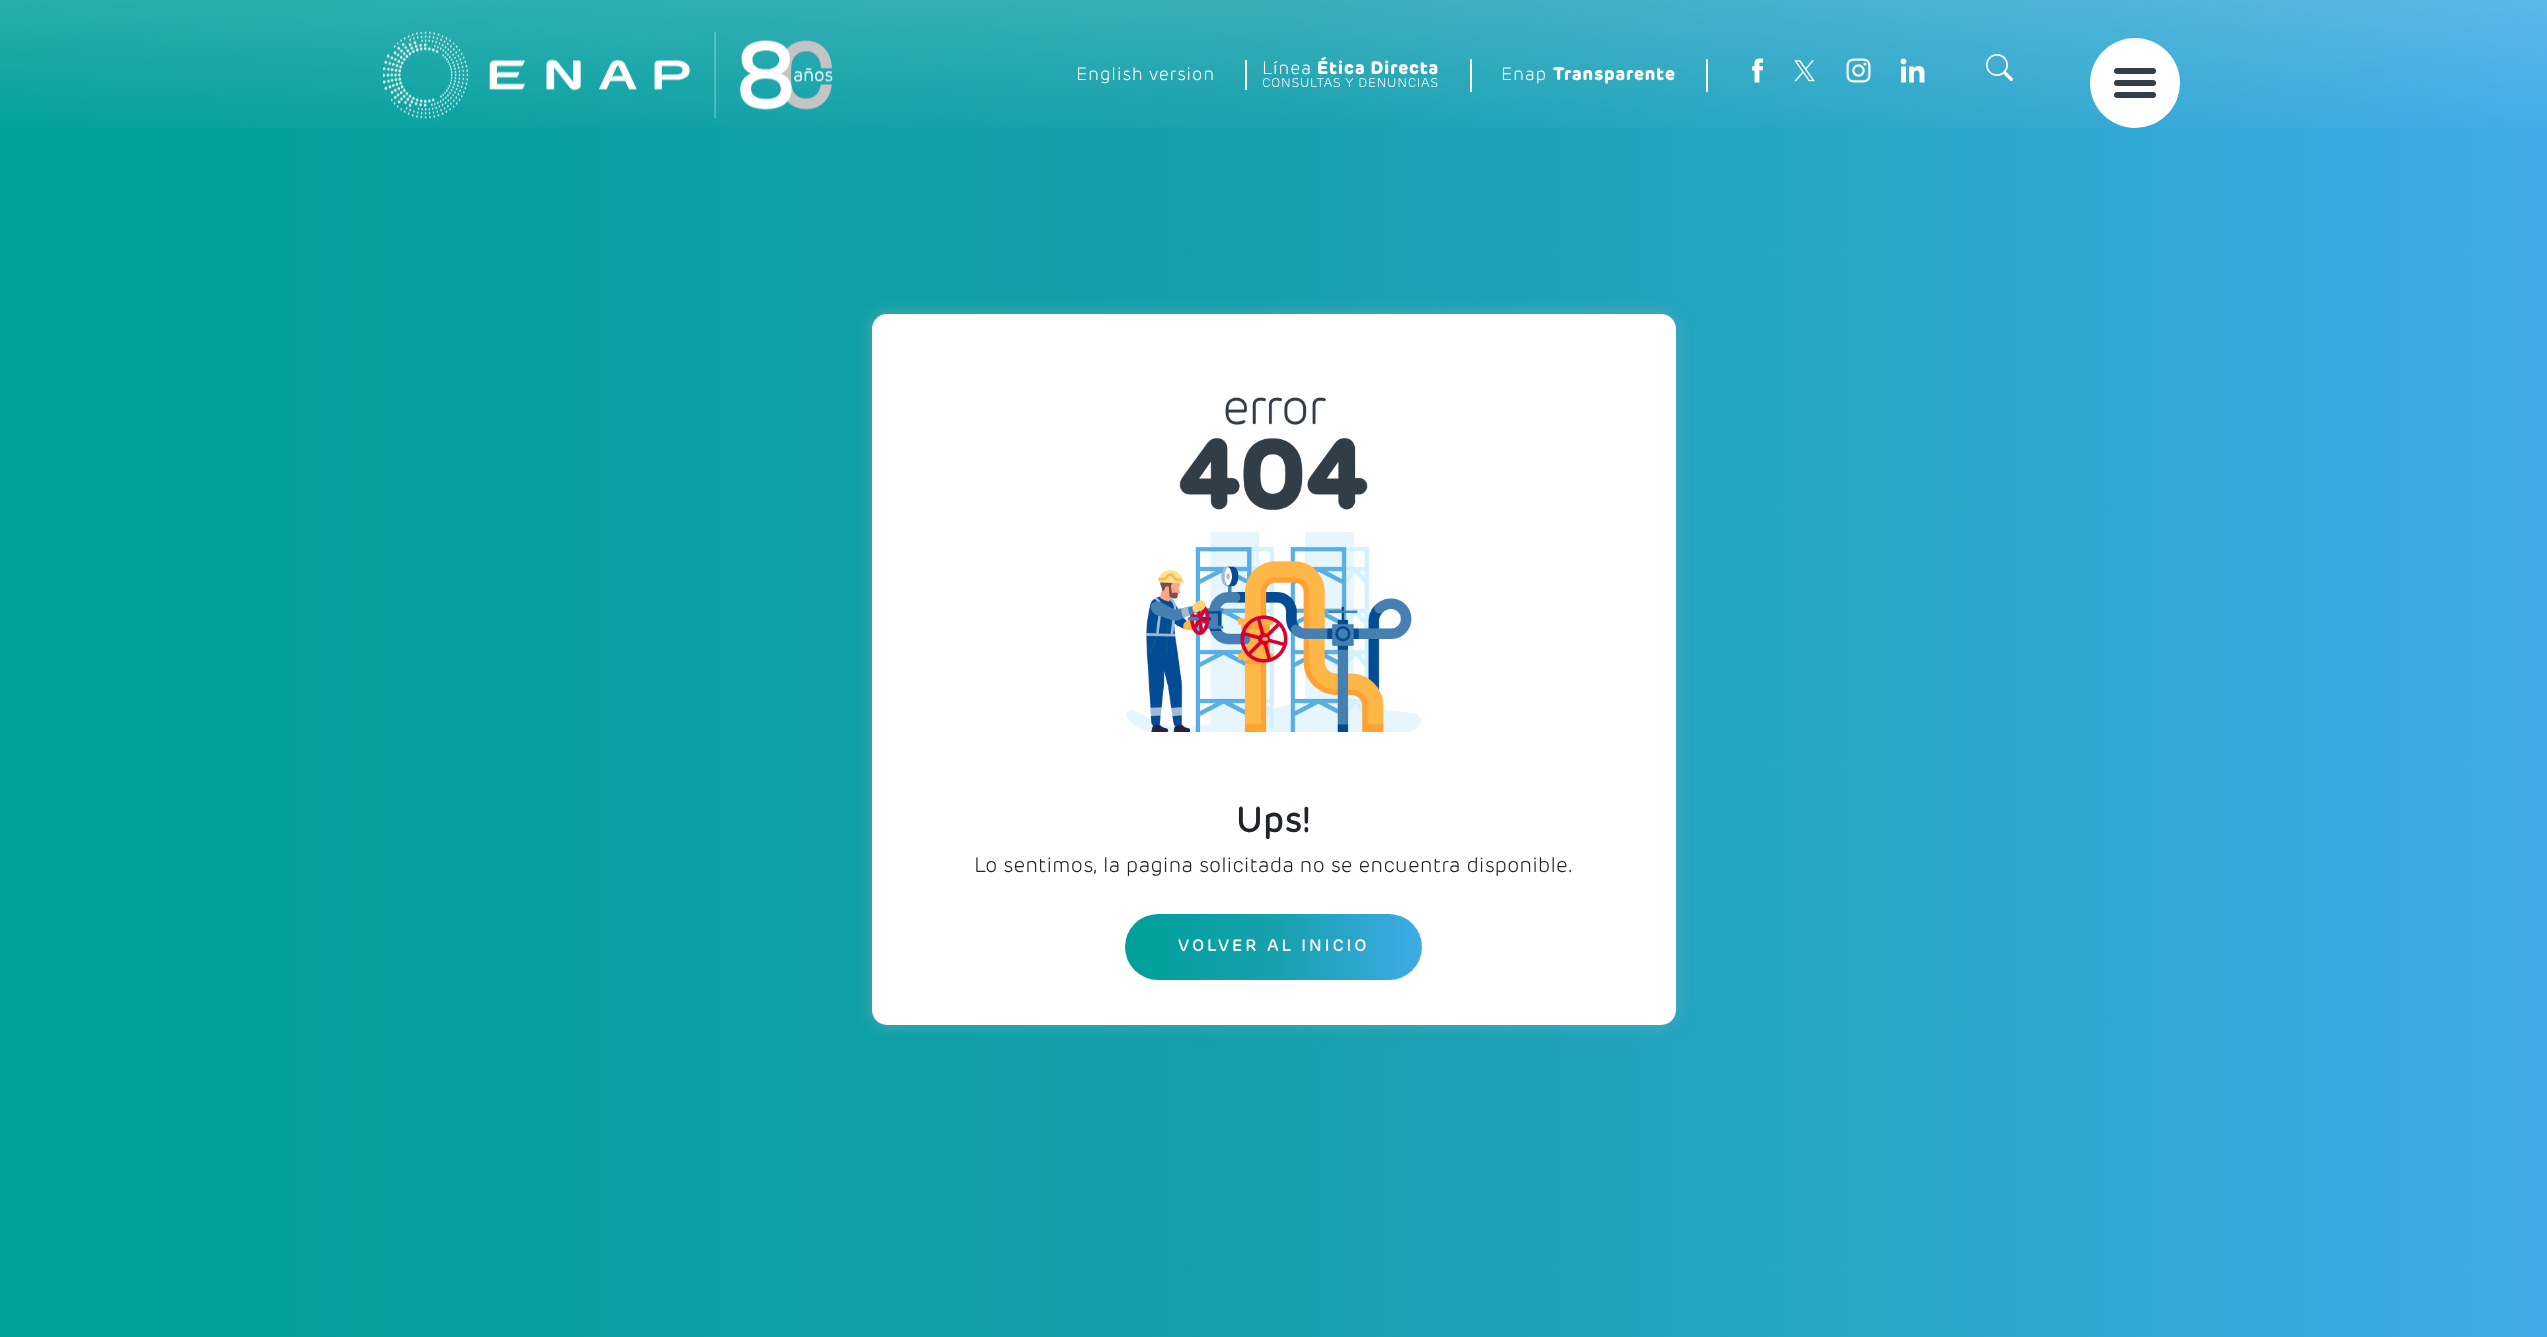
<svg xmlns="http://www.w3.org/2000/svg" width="2547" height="1337">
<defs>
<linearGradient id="g1" gradientUnits="userSpaceOnUse" x1="0" y1="1133" x2="2547" y2="1133"><stop offset="0" stop-color="#00a09a"/><stop offset="0.5" stop-color="#16a0ad"/><stop offset="1" stop-color="#3eabe6"/></linearGradient>
<linearGradient id="g2" gradientUnits="userSpaceOnUse" x1="1274" y1="0" x2="1274" y2="150"><stop offset="0" stop-color="#fff" stop-opacity="0.15"/><stop offset="1" stop-color="#fff" stop-opacity="0"/></linearGradient>
<linearGradient id="g3" gradientUnits="userSpaceOnUse" x1="1125" y1="947" x2="1422" y2="947"><stop offset="0" stop-color="#00a09a"/><stop offset="0.5" stop-color="#16a0ad"/><stop offset="1" stop-color="#3eabe6"/></linearGradient>
</defs>
<rect width="100%" height="100%" fill="#fff"/>
<rect width="2547" height="1337" fill="url(#g1)"/>
<rect width="2547" height="128" fill="url(#g2)"/>
<image x="383" y="31" width="450" height="88" href="media/1.png"/>
<rect x="1245" y="60" width="2" height="30" fill="#fff"/>
<text x="1076" y="80" style="font-family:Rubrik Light;font-size:18px;font-weight:300;letter-spacing:0.75px;fill:#fff">English version</text>
<rect x="1706" y="59" width="2" height="33" fill="#fff"/>
<rect x="1470" y="59" width="2" height="33" fill="#fff"/>
<text x="1262" y="74" style="font-family:Rubrik Light;font-size:18px;font-weight:300;letter-spacing:0.75px;fill:#fff">Línea</text>
<text x="1317" y="74" style="font-family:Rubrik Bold;font-size:18px;font-weight:bold;letter-spacing:0.75px;fill:#fff">Ética Directa</text>
<text x="1262" y="87" style="font-family:Rubrik Light;font-size:12.6px;font-weight:300;letter-spacing:0.75px;fill:#fff">CONSULTAS Y DENUNCIAS</text>
<text x="1501" y="80" style="font-family:Rubrik Light;font-size:18px;font-weight:300;letter-spacing:0.75px;fill:#fff">Enap</text>
<text x="1553" y="80" style="font-family:Rubrik Bold;font-size:18px;font-weight:bold;letter-spacing:0.75px;fill:#fff">Transparente</text>
<image x="1752" y="58" width="12" height="25" href="media/2.png"/>
<image x="1794" y="60" width="21" height="22" href="media/3.png"/>
<image x="1846" y="58" width="25" height="25" href="media/4.png"/>
<image x="1900" y="58" width="25" height="25" href="media/5.png"/>
<image x="1986" y="54" width="27" height="27" href="media/6.png"/>
<circle cx="2135" cy="83" r="45" fill="#fff"/>
<rect x="2114" y="80" width="42" height="6" rx="3" fill="#333e48"/>
<rect x="2114" y="68" width="42" height="6" rx="3" fill="#333e48"/>
<rect x="2114" y="92" width="42" height="6" rx="3" fill="#333e48"/>
<rect x="870" y="312" width="807" height="714" rx="17" fill="#b2bcc44d" filter="blur(8px)"/>
<rect x="872" y="314" width="804" height="711" rx="15" fill="#fff"/>
<image x="1126" y="397" width="295" height="335" href="media/7.png"/>
<text x="1236" y="832" style="font-family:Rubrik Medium;font-size:36px;font-weight:500;fill:#212529">Ups!</text>
<text x="974" y="872" style="font-family:Rubrik Light;font-size:21px;font-weight:300;fill:#212529">Lo sentimos, la pagina solicitada no se encuentra disponible.</text>
<rect x="1125" y="914" width="297" height="66" rx="33" fill="url(#g3)"/>
<text x="1178" y="951" style="font-family:Rubrik Medium;font-size:16.5px;font-weight:500;letter-spacing:3px;fill:#fff">VOLVER AL INICIO</text>
</svg>
